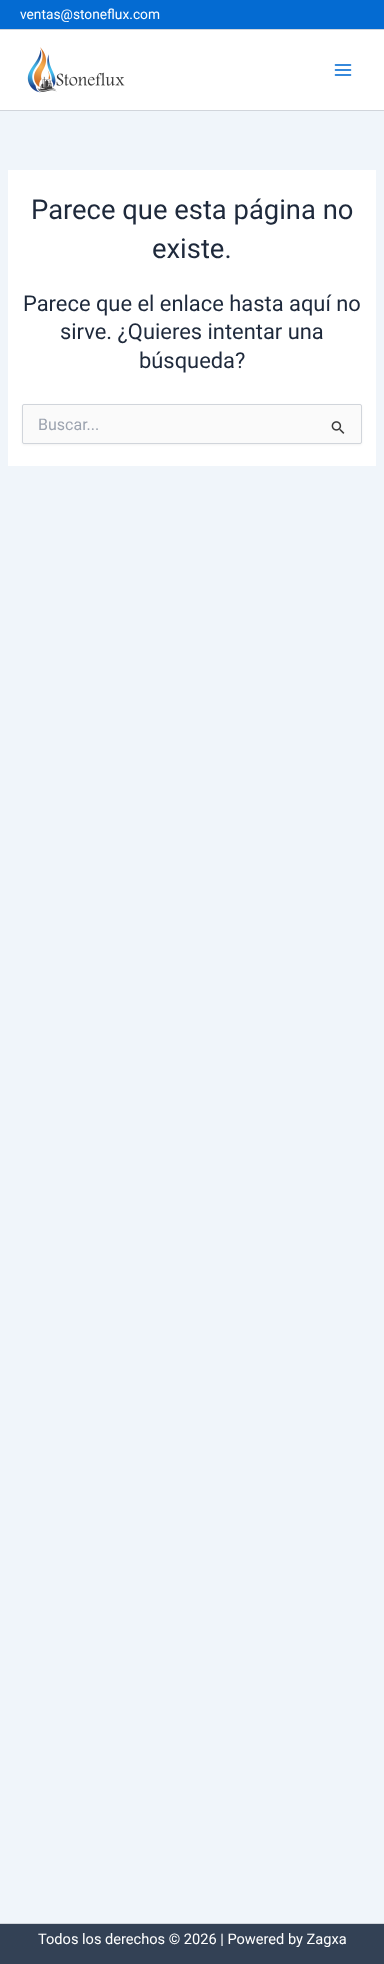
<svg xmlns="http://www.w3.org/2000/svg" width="384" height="1964">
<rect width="100%" height="100%" fill="#f0f5fa"/>
<rect width="384" height="29" fill="#046bd2"/>
<rect y="29" width="384" height="1" fill="#d1d5db"/>
<text x="20" y="19" style="font-family:Roboto;font-size:13.75px;fill:#fff">ventas@stoneflux.com</text>
<rect y="30" width="384" height="80" fill="#fff"/>
<rect y="110" width="384" height="1" fill="#d1d5db"/>
<image x="27" y="47" width="98" height="46" href="media/1.png"/>
<image x="334" y="64" width="18" height="12" href="media/2.png"/>
<rect x="8" y="170" width="368" height="296" fill="#fff"/>
<text x="31" y="219" style="font-family:Roboto;font-size:27.4px;fill:#1e293b">Parece que esta página no</text>
<text x="152" y="258" style="font-family:Roboto;font-size:27.4px;fill:#1e293b">existe.</text>
<text x="23" y="311" style="font-family:Roboto;font-size:21.9px;fill:#1e293b">Parece que el enlace hasta aquí no</text>
<text x="60" y="339" style="font-family:Roboto;font-size:21.9px;fill:#1e293b">sirve. ¿Quieres intentar una</text>
<text x="139" y="368" style="font-family:Roboto;font-size:21.9px;fill:#1e293b">búsqueda?</text>
<rect x="22" y="405" width="340" height="40" rx="2" fill="#0000000d" filter="blur(1px)"/>
<rect x="22.5" y="404.5" width="339" height="39" rx="1.5" fill="#fafafa" stroke="#d1d5db"/>
<text x="38" y="430" style="font-family:Roboto;font-size:16px;fill:#9ca3af">Buscar...</text>
<image x="331" y="421" width="14" height="13" href="media/3.png"/>
<rect y="1924" width="384" height="40" fill="#334155"/>
<rect y="1923" width="384" height="1" fill="#d1d5db"/>
<text x="38" y="1944" style="font-family:Roboto;font-size:14.6px;fill:#fff">Todos los derechos © 2026 | Powered by Zagxa</text>
</svg>
